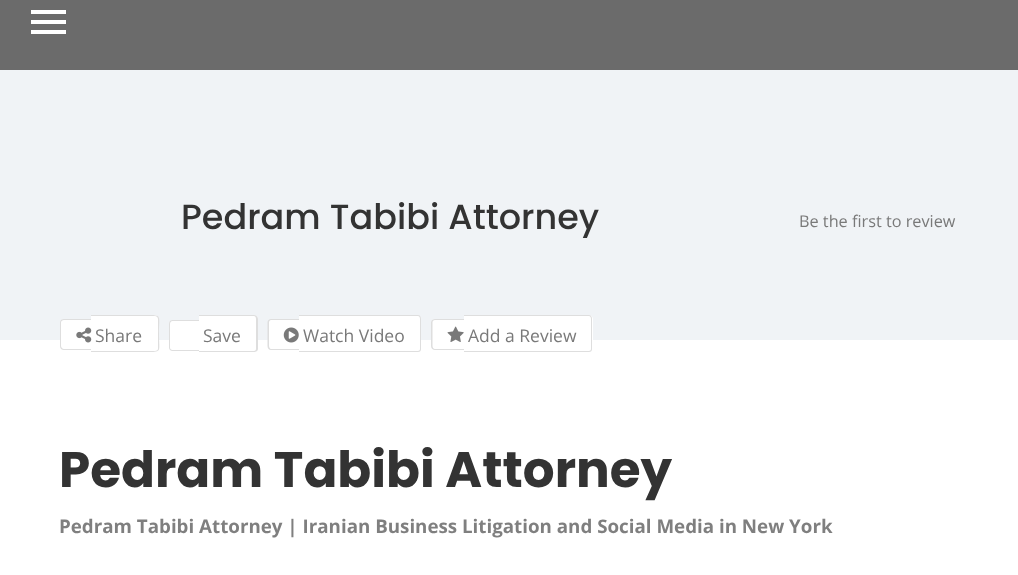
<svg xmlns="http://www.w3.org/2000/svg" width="1018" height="575">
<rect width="100%" height="100%" fill="#fff"/>
<rect width="1018" height="70" fill="#6b6b6b"/>
<rect x="31" y="10" width="35" height="4" fill="#fff"/>
<rect x="31" y="20" width="35" height="4" fill="#fff"/>
<rect x="31" y="30" width="35" height="4" fill="#fff"/>
<rect y="70" width="1018" height="270" fill="#f0f3f6"/>
<text x="181" y="229" style="font-family:Poppins;font-size:35px;font-weight:500;fill:#333">Pedram Tabibi Attorney</text>
<text x="799" y="227" style="font-family:Open Sans;font-size:16.25px;fill:#797979">Be the first to review</text>
<path d="M64 319h27v31h-27c-2 0-4-2-4-4v-23c0-2 2-4 4-4z" fill="#fff"/>
<path d="M64 319h27v31h-27c-2.5 0-4-1.5-4-4v-23.5c0-2 1.5-3.5 4-3.5zm0 1h27v29h-27c-1.5 0-3-1.5-3-3v-23.5c0-1.5 1.5-2.5 3-2.5z" fill="#dedede" fill-rule="evenodd"/>
<path d="M91 315h64c2 0 4 2 4 4v30c0 2-2 4-4 4h-64z" fill="#fff"/>
<path d="M91 315h53c19 0 15-1 15 19c0 19 4 18-15 18h-53zm0 1h64c1 0 3 1 3 3v30c0 1-2 2-3 2h-64z" fill="#dedede" fill-rule="evenodd"/>
<image x="76" y="327" width="16" height="16" href="media/1.png"/>
<text x="95" y="342" style="font-family:Open Sans;font-size:17.5px;fill:#797979">Share</text>
<path d="M199 315h55c2 0 4 2 4 4v30c0 2-2 4-4 4h-55z" fill="#fff"/>
<path d="M199 315h55c2 0 4 2 4 4v30c0 2-2 3-4 3h-55zm0 1h55c1 0 2 1 2 3v30c0 1-1 2-2 2h-55z" fill="#dedede" fill-rule="evenodd"/>
<text x="203" y="342" style="font-family:Open Sans;font-size:17.5px;fill:#797979">Save</text>
<path d="M173 320h26v31h-26c-2 0-4-2-4-4v-23c0-2 2-4 4-4z" fill="#fff"/>
<path d="M172.5 320h26.5v31h-26.5c-2 0-3.5-1.5-3.5-3.5v-23.5c0-2.5 1.5-4 3.5-4zm0 1h26.5v29h-26.5c-1.5 0-2.5-1-2.5-2.5v-23.5c0-1.5 1-3 2.5-3z" fill="#dedede" fill-rule="evenodd"/>
<path d="M272 319h27v31h-27c-2 0-4-2-4-4v-23c0-2 2-4 4-4z" fill="#fff"/>
<path d="M271 319h28v31h-28c-2 0-3.5-1.5-3.5-4v-23.5c0-2 1.5-3.5 3.5-3.5zm0 1h28v29h-28c-1 0-2-1.5-2-3v-23.5c0-1.5 1-2.5 2-2.5z" fill="#dedede" fill-rule="evenodd"/>
<path d="M299 315h118c2 0 4 2 4 4v30c0 2-2 4-4 4h-118z" fill="#fff"/>
<path d="M299 315h119c2 0 3 2 3 4v30c0 2-1 3-3 3h-119zm0 1h119c1 0 2 1 2 3v30c0 1-1 2-2 2h-119z" fill="#dedede" fill-rule="evenodd"/>
<image x="283" y="327" width="16" height="16" href="media/2.png"/>
<text x="303" y="342" style="font-family:Open Sans;font-size:17.5px;fill:#797979">Watch Video</text>
<path d="M435 319h29v31h-29c-2 0-4-2-4-4v-23c0-2 2-4 4-4z" fill="#fff"/>
<path d="M435 319h29v31h-29c-2 0-4-1.5-4-4v-23.5c0-2 2-3.5 4-3.5zm0 1h29v29h-29c-1.5 0-2.5-1.5-2.5-3v-23.5c0-1.5 1-2.5 2.5-2.5z" fill="#dedede" fill-rule="evenodd"/>
<path d="M464 315h125c2 0 4 2 4 4v30c0 2-2 4-4 4h-125z" fill="#fff"/>
<path d="M464 315h125c2 0 3 2 3 4v30c0 2-1 3-3 3h-125zm0 1h125c1 0 2 1 2 3v30c0 1-1 2-2 2h-125z" fill="#dedede" fill-rule="evenodd"/>
<image x="447" y="326" width="17" height="16" href="media/3.png"/>
<text x="468" y="342" style="font-family:Open Sans;font-size:17.5px;fill:#797979">Add a Review</text>
<text x="59" y="487" style="font-family:Poppins;font-size:50px;font-weight:bold;fill:#333">Pedram Tabibi Attorney</text>
<text x="59" y="533" style="font-family:Open Sans;font-size:18.75px;font-weight:bold;fill:#7f7f7f">Pedram Tabibi Attorney | Iranian Business Litigation and Social Media in New York</text>
</svg>
